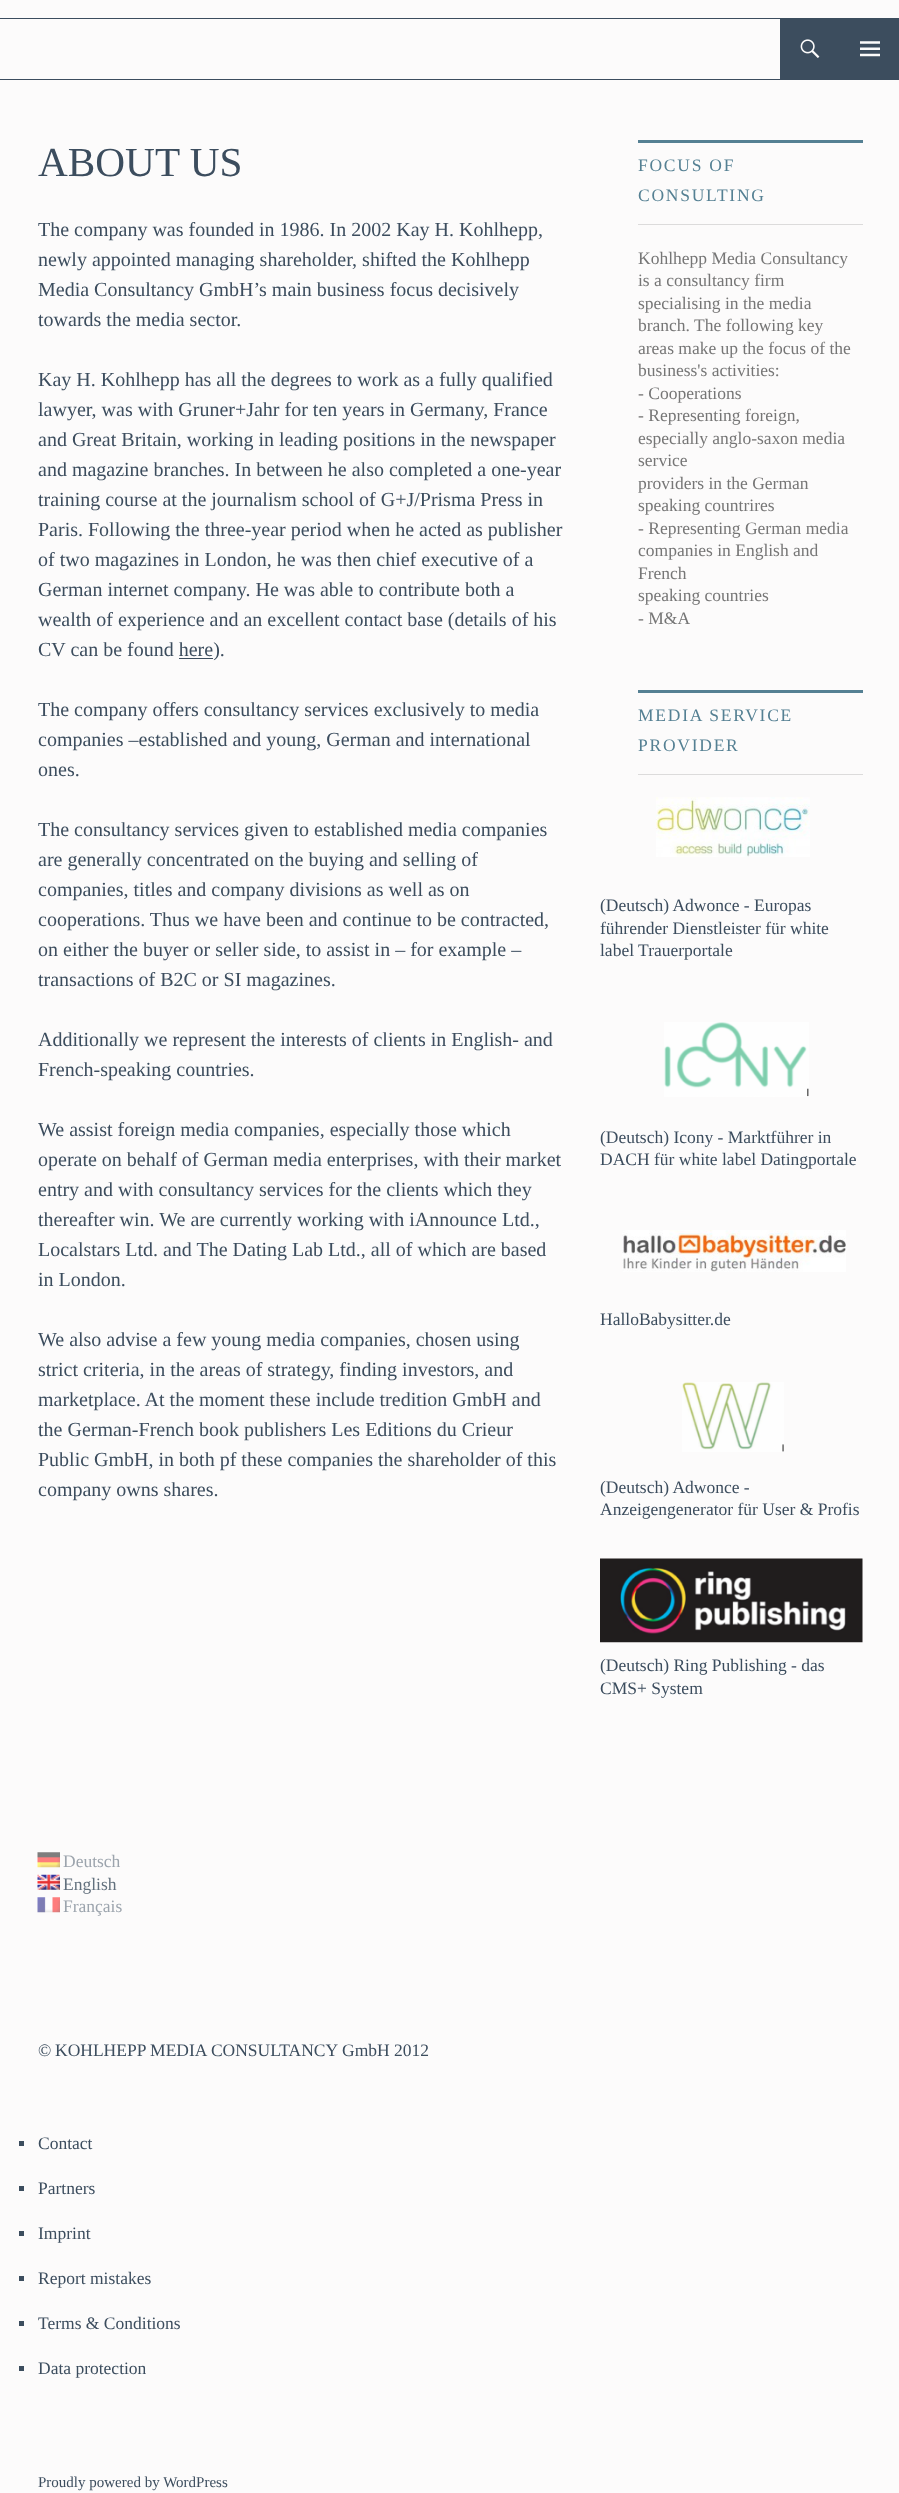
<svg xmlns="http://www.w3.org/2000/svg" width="899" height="2493">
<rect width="100%" height="100%" fill="#fcfbfb"/>
<rect y="18" width="899" height="1" fill="#3c4d5e"/>
<rect y="79" width="899" height="1" fill="#3c4d5e"/>
<rect x="780" y="19" width="119" height="60" fill="#3c4d5e"/>
<image x="800" y="39" width="20" height="19" href="media/1.png"/>
<image x="860" y="41" width="20" height="16" href="media/2.png"/>
<text x="38" y="176" style="font-family:Liberation Serif;font-size:41.25px;fill:#3c4d5e">ABOUT US</text>
<text x="38" y="236" style="font-family:Liberation Serif;font-size:20px;fill:#3c4d5e">The company was founded in 1986. In 2002 Kay H. Kohlhepp,</text>
<text x="38" y="266" style="font-family:Liberation Serif;font-size:20px;fill:#3c4d5e">newly appointed managing shareholder, shifted the Kohlhepp</text>
<text x="38" y="296" style="font-family:Liberation Serif;font-size:20px;fill:#3c4d5e">Media Consultancy GmbH’s main business focus decisively</text>
<text x="38" y="326" style="font-family:Liberation Serif;font-size:20px;fill:#3c4d5e">towards the media sector.</text>
<text x="38" y="386" style="font-family:Liberation Serif;font-size:20px;fill:#3c4d5e">Kay H. Kohlhepp has all the degrees to work as a fully qualified</text>
<text x="38" y="416" style="font-family:Liberation Serif;font-size:20px;fill:#3c4d5e">lawyer, was with Gruner+Jahr for ten years in Germany, France</text>
<text x="38" y="446" style="font-family:Liberation Serif;font-size:20px;fill:#3c4d5e">and Great Britain, working in leading positions in the newspaper</text>
<text x="38" y="476" style="font-family:Liberation Serif;font-size:20px;fill:#3c4d5e">and magazine branches. In between he also completed a one-year</text>
<text x="38" y="506" style="font-family:Liberation Serif;font-size:20px;fill:#3c4d5e">training course at the journalism school of G+J/Prisma Press in</text>
<text x="38" y="536" style="font-family:Liberation Serif;font-size:20px;fill:#3c4d5e">Paris. Following the three-year period when he acted as publisher</text>
<text x="38" y="566" style="font-family:Liberation Serif;font-size:20px;fill:#3c4d5e">of two magazines in London, he was then chief executive of a</text>
<text x="38" y="596" style="font-family:Liberation Serif;font-size:20px;fill:#3c4d5e">German internet company. He was able to contribute both a</text>
<text x="38" y="626" style="font-family:Liberation Serif;font-size:20px;fill:#3c4d5e">wealth of experience and an excellent contact base (details of his</text>
<text x="38" y="656" style="font-family:Liberation Serif;font-size:20px;fill:#3c4d5e">CV can be found here).</text>
<rect x="179" y="658" width="34" height="1" fill="#3c4d5e"/>
<text x="38" y="716" style="font-family:Liberation Serif;font-size:20px;fill:#3c4d5e">The company offers consultancy services exclusively to media</text>
<text x="38" y="746" style="font-family:Liberation Serif;font-size:20px;fill:#3c4d5e">companies –established and young, German and international</text>
<text x="38" y="776" style="font-family:Liberation Serif;font-size:20px;fill:#3c4d5e">ones.</text>
<text x="38" y="836" style="font-family:Liberation Serif;font-size:20px;fill:#3c4d5e">The consultancy services given to established media companies</text>
<text x="38" y="866" style="font-family:Liberation Serif;font-size:20px;fill:#3c4d5e">are generally concentrated on the buying and selling of</text>
<text x="38" y="896" style="font-family:Liberation Serif;font-size:20px;fill:#3c4d5e">companies, titles and company divisions as well as on</text>
<text x="38" y="926" style="font-family:Liberation Serif;font-size:20px;fill:#3c4d5e">cooperations. Thus we have been and continue to be contracted,</text>
<text x="38" y="956" style="font-family:Liberation Serif;font-size:20px;fill:#3c4d5e">on either the buyer or seller side, to assist in – for example –</text>
<text x="38" y="986" style="font-family:Liberation Serif;font-size:20px;fill:#3c4d5e">transactions of B2C or SI magazines.</text>
<text x="38" y="1046" style="font-family:Liberation Serif;font-size:20px;fill:#3c4d5e">Additionally we represent the interests of clients in English- and</text>
<text x="38" y="1076" style="font-family:Liberation Serif;font-size:20px;fill:#3c4d5e">French-speaking countries.</text>
<text x="38" y="1136" style="font-family:Liberation Serif;font-size:20px;fill:#3c4d5e">We assist foreign media companies, especially those which</text>
<text x="38" y="1166" style="font-family:Liberation Serif;font-size:20px;fill:#3c4d5e">operate on behalf of German media enterprises, with their market</text>
<text x="38" y="1196" style="font-family:Liberation Serif;font-size:20px;fill:#3c4d5e">entry and with consultancy services for the clients which they</text>
<text x="38" y="1226" style="font-family:Liberation Serif;font-size:20px;fill:#3c4d5e">thereafter win. We are currently working with iAnnounce Ltd.,</text>
<text x="38" y="1256" style="font-family:Liberation Serif;font-size:20px;fill:#3c4d5e">Localstars Ltd. and The Dating Lab Ltd., all of which are based</text>
<text x="38" y="1286" style="font-family:Liberation Serif;font-size:20px;fill:#3c4d5e">in London.</text>
<text x="38" y="1346" style="font-family:Liberation Serif;font-size:20px;fill:#3c4d5e">We also advise a few young media companies, chosen using</text>
<text x="38" y="1376" style="font-family:Liberation Serif;font-size:20px;fill:#3c4d5e">strict criteria, in the areas of strategy, finding investors, and</text>
<text x="38" y="1406" style="font-family:Liberation Serif;font-size:20px;fill:#3c4d5e">marketplace. At the moment these include tredition GmbH and</text>
<text x="38" y="1436" style="font-family:Liberation Serif;font-size:20px;fill:#3c4d5e">the German-French book publishers Les Editions du Crieur</text>
<text x="38" y="1466" style="font-family:Liberation Serif;font-size:20px;fill:#3c4d5e">Public GmbH, in both pf these companies the shareholder of this</text>
<text x="38" y="1496" style="font-family:Liberation Serif;font-size:20px;fill:#3c4d5e">company owns shares.</text>
<rect x="638" y="140" width="225" height="3" fill="#558093"/>
<rect x="638" y="224" width="225" height="1" fill="#dcdbdb"/>
<text x="638" y="171" style="font-family:Liberation Serif;font-size:17.5px;letter-spacing:1.75px;fill:#558093">FOCUS OF</text>
<text x="638" y="201" style="font-family:Liberation Serif;font-size:17.5px;letter-spacing:1.75px;fill:#558093">CONSULTING</text>
<text x="638" y="264" style="font-family:Liberation Serif;font-size:17.5px;fill:#767676">Kohlhepp Media Consultancy</text>
<text x="638" y="286" style="font-family:Liberation Serif;font-size:17.5px;fill:#767676">is a consultancy firm</text>
<text x="638" y="309" style="font-family:Liberation Serif;font-size:17.5px;fill:#767676">specialising in the media</text>
<text x="638" y="331" style="font-family:Liberation Serif;font-size:17.5px;fill:#767676">branch. The following key</text>
<text x="638" y="354" style="font-family:Liberation Serif;font-size:17.5px;fill:#767676">areas make up the focus of the</text>
<text x="638" y="376" style="font-family:Liberation Serif;font-size:17.5px;fill:#767676">business's activities:</text>
<text x="638" y="399" style="font-family:Liberation Serif;font-size:17.5px;fill:#767676">- Cooperations</text>
<text x="638" y="421" style="font-family:Liberation Serif;font-size:17.5px;fill:#767676">- Representing foreign,</text>
<text x="638" y="444" style="font-family:Liberation Serif;font-size:17.5px;fill:#767676">especially anglo-saxon media</text>
<text x="638" y="466" style="font-family:Liberation Serif;font-size:17.5px;fill:#767676">service</text>
<text x="638" y="489" style="font-family:Liberation Serif;font-size:17.5px;fill:#767676">providers in the German</text>
<text x="638" y="511" style="font-family:Liberation Serif;font-size:17.5px;fill:#767676">speaking countrires</text>
<text x="638" y="534" style="font-family:Liberation Serif;font-size:17.5px;fill:#767676">- Representing German media</text>
<text x="638" y="556" style="font-family:Liberation Serif;font-size:17.5px;fill:#767676">companies in English and</text>
<text x="638" y="579" style="font-family:Liberation Serif;font-size:17.5px;fill:#767676">French</text>
<text x="638" y="601" style="font-family:Liberation Serif;font-size:17.5px;fill:#767676">speaking countries</text>
<text x="638" y="624" style="font-family:Liberation Serif;font-size:17.5px;fill:#767676">- M&amp;A</text>
<rect x="638" y="690" width="225" height="3" fill="#558093"/>
<rect x="638" y="774" width="225" height="1" fill="#dcdbdb"/>
<text x="638" y="721" style="font-family:Liberation Serif;font-size:17.5px;letter-spacing:1.75px;fill:#558093">MEDIA SERVICE</text>
<text x="638" y="751" style="font-family:Liberation Serif;font-size:17.5px;letter-spacing:1.75px;fill:#558093">PROVIDER</text>
<image x="656" y="797" width="154" height="60" href="media/3.png"/>
<text x="600" y="911" style="font-family:Liberation Serif;font-size:17.5px;fill:#3c4d5e">(Deutsch) Adwonce - Europas</text>
<text x="600" y="934" style="font-family:Liberation Serif;font-size:17.5px;fill:#3c4d5e">führender Dienstleister für white</text>
<text x="600" y="956" style="font-family:Liberation Serif;font-size:17.5px;fill:#3c4d5e">label Trauerportale</text>
<image x="664" y="1022" width="145" height="75" href="media/4.png"/>
<text x="600" y="1143" style="font-family:Liberation Serif;font-size:17.5px;fill:#3c4d5e">(Deutsch) Icony - Marktführer in</text>
<text x="600" y="1165" style="font-family:Liberation Serif;font-size:17.5px;fill:#3c4d5e">DACH für white label Datingportale</text>
<image x="622" y="1230" width="224" height="42" href="media/5.png"/>
<text x="600" y="1325" style="font-family:Liberation Serif;font-size:17.5px;fill:#3c4d5e">HalloBabysitter.de</text>
<image x="682" y="1382" width="102" height="70" href="media/6.png"/>
<text x="600" y="1493" style="font-family:Liberation Serif;font-size:17.5px;fill:#3c4d5e">(Deutsch) Adwonce -</text>
<text x="600" y="1515" style="font-family:Liberation Serif;font-size:17.5px;fill:#3c4d5e">Anzeigengenerator für User &amp; Profis</text>
<image x="600" y="1558" width="263" height="85" href="media/7.png"/>
<text x="600" y="1671" style="font-family:Liberation Serif;font-size:17.5px;fill:#3c4d5e">(Deutsch) Ring Publishing - das</text>
<text x="600" y="1694" style="font-family:Liberation Serif;font-size:17.5px;fill:#3c4d5e">CMS+ System</text>
<image x="37" y="1852" width="23" height="16" href="media/8.png"/>
<text x="63" y="1867" style="font-family:Liberation Serif;font-size:17.5px;fill:#9ca4ad">Deutsch</text>
<image x="37" y="1874" width="23" height="16" href="media/9.png"/>
<text x="63" y="1890" style="font-family:Liberation Serif;font-size:17.5px;fill:#62707d">English</text>
<image x="37" y="1897" width="23" height="16" href="media/10.png"/>
<text x="63" y="1912" style="font-family:Liberation Serif;font-size:17.5px;fill:#9ca4ad">Français</text>
<text x="38" y="2056" style="font-family:Liberation Serif;font-size:17.5px;fill:#3c4d5e">©</text>
<text x="55" y="2056" style="font-family:Liberation Serif;font-size:17.5px;fill:#3c4d5e">KOHLHEPP MEDIA CONSULTANCY</text>
<text x="342" y="2056" style="font-family:Liberation Serif;font-size:17.5px;fill:#3c4d5e">GmbH 2012</text>
<rect x="19" y="2141" width="5" height="5" fill="#3c4d5e"/>
<text x="38" y="2149" style="font-family:Liberation Serif;font-size:17.5px;fill:#3c4d5e">Contact</text>
<rect x="19" y="2186" width="5" height="5" fill="#3c4d5e"/>
<text x="38" y="2194" style="font-family:Liberation Serif;font-size:17.5px;fill:#3c4d5e">Partners</text>
<rect x="19" y="2231" width="5" height="5" fill="#3c4d5e"/>
<text x="38" y="2239" style="font-family:Liberation Serif;font-size:17.5px;fill:#3c4d5e">Imprint</text>
<rect x="19" y="2276" width="5" height="5" fill="#3c4d5e"/>
<text x="38" y="2284" style="font-family:Liberation Serif;font-size:17.5px;fill:#3c4d5e">Report mistakes</text>
<rect x="19" y="2321" width="5" height="5" fill="#3c4d5e"/>
<text x="38" y="2329" style="font-family:Liberation Serif;font-size:17.5px;fill:#3c4d5e">Terms &amp; Conditions</text>
<rect x="19" y="2366" width="5" height="5" fill="#3c4d5e"/>
<text x="38" y="2374" style="font-family:Liberation Serif;font-size:17.5px;fill:#3c4d5e">Data protection</text>
<text x="38" y="2487" style="font-family:Liberation Serif;font-size:15px;fill:#3c4d5e">Proudly powered by WordPress</text>
</svg>
